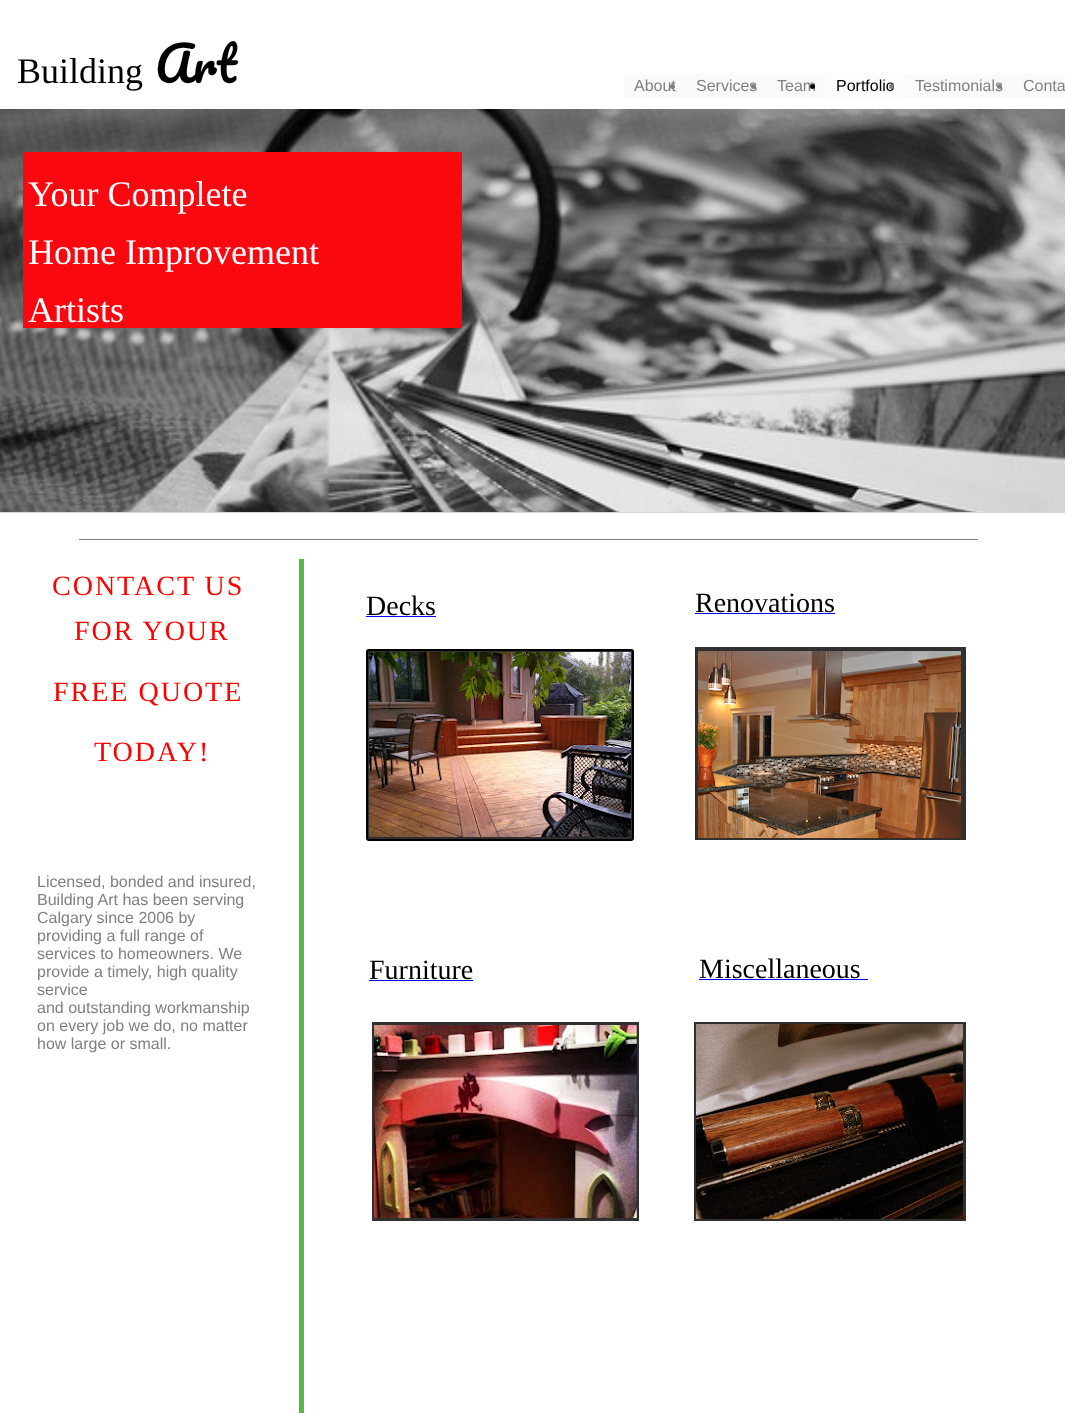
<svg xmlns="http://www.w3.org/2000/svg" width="1065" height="1413">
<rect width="100%" height="100%" fill="#fff"/>
<text x="17" y="83" style="font-family:Liberation Serif;font-size:36px;fill:#000">Building</text>
<text x="155" y="83" style="font-family:Pacifico;font-size:48px;fill:#000">Art</text>
<rect x="624" y="74" width="202" height="24" fill="#fcf9fc"/>
<text x="634" y="91" style="font-family:Liberation Sans;font-size:16px;fill:#808080">About</text>
<circle cx="672.5" cy="86.5" r="2.5" fill="#827f82"/>
<text x="696" y="91" style="font-family:Liberation Sans;font-size:16px;fill:#808080">Services</text>
<circle cx="753.5" cy="86.5" r="2.5" fill="#827f82"/>
<text x="777" y="91" style="font-family:Liberation Sans;font-size:16px;fill:#808080">Team</text>
<rect x="826" y="74" width="79" height="24" fill="#fcfcfc"/>
<circle cx="812.5" cy="86.5" r="2.5" fill="#000"/>
<text x="836" y="91" style="font-family:Liberation Sans;font-size:16px;fill:#000">Portfolio</text>
<rect x="905" y="74" width="160" height="24" fill="#fcf9fc"/>
<circle cx="891.5" cy="86.5" r="2.5" fill="#827f82"/>
<text x="915" y="91" style="font-family:Liberation Sans;font-size:16px;fill:#808080">Testimonials</text>
<circle cx="999.5" cy="86.5" r="2.5" fill="#827f82"/>
<text x="1023" y="91" style="font-family:Liberation Sans;font-size:16px;fill:#808080">Conta</text>
<image x="0" y="109" width="1065" height="403" href="media/1.png"/>
<rect x="23" y="152" width="439" height="176" fill="#fa0810"/>
<text x="28" y="206" style="font-family:Liberation Serif;font-size:36px;fill:#fff">Your Complete</text>
<text x="28" y="264" style="font-family:Liberation Serif;font-size:36px;fill:#fff">Home Improvement</text>
<text x="28" y="322" style="font-family:Liberation Serif;font-size:36px;fill:#fff">Artists</text>
<rect y="512" width="1065" height="1" fill="#d6d6d6"/>
<rect x="79" y="539" width="899" height="1" fill="#808080"/>
<text x="52" y="595" style="font-family:Liberation Serif;font-size:28px;letter-spacing:2px;fill:#f00">CONTACT US</text>
<text x="74" y="640" style="font-family:Liberation Serif;font-size:28px;letter-spacing:2px;fill:#f00">FOR YOUR</text>
<text x="53" y="701" style="font-family:Liberation Serif;font-size:28px;letter-spacing:2px;fill:#f00">FREE QUOTE</text>
<text x="94" y="761" style="font-family:Liberation Serif;font-size:28px;letter-spacing:2px;fill:#f00">TODAY!</text>
<rect x="299" y="559" width="5" height="854" fill="#56b840"/>
<text x="366" y="615" style="font-family:Liberation Serif;font-size:28px;fill:#000">Decks</text>
<rect x="366" y="616" width="70" height="1" fill="#00e"/>
<text x="695" y="612" style="font-family:Liberation Serif;font-size:28px;fill:#000">Renovations</text>
<rect x="695" y="613" width="140" height="1" fill="#00e"/>
<rect x="367" y="650" width="266" height="190" rx="2" fill="#303030" stroke="#000" stroke-width="2"/>
<rect x="695" y="647" width="271" height="193" fill="#303030"/>
<image x="369" y="652" width="262" height="185" href="media/2.png"/>
<image x="698" y="651" width="263" height="187" href="media/3.png"/>
<text x="37" y="887" style="font-family:Liberation Sans;font-size:16px;fill:#808080">Licensed, bonded and insured,</text>
<text x="37" y="905" style="font-family:Liberation Sans;font-size:16px;fill:#808080">Building Art has been serving</text>
<text x="37" y="923" style="font-family:Liberation Sans;font-size:16px;fill:#808080">Calgary since 2006 by</text>
<text x="37" y="941" style="font-family:Liberation Sans;font-size:16px;fill:#808080">providing a full range of</text>
<text x="37" y="959" style="font-family:Liberation Sans;font-size:16px;fill:#808080">services to homeowners. We</text>
<text x="37" y="977" style="font-family:Liberation Sans;font-size:16px;fill:#808080">provide a timely, high quality</text>
<text x="37" y="995" style="font-family:Liberation Sans;font-size:16px;fill:#808080">service</text>
<text x="37" y="1013" style="font-family:Liberation Sans;font-size:16px;fill:#808080">and outstanding workmanship</text>
<text x="37" y="1031" style="font-family:Liberation Sans;font-size:16px;fill:#808080">on every job we do, no matter</text>
<text x="37" y="1049" style="font-family:Liberation Sans;font-size:16px;fill:#808080">how large or small.</text>
<text x="369" y="979" style="font-family:Liberation Serif;font-size:28px;fill:#000">Furniture</text>
<rect x="369" y="980" width="104" height="1" fill="#00e"/>
<text x="699" y="978" style="font-family:Liberation Serif;font-size:28px;fill:#000">Miscellaneous</text>
<rect x="699" y="979" width="169" height="1" fill="#00e"/>
<rect x="372" y="1022" width="267" height="199" fill="#303030"/>
<rect x="694" y="1022" width="272" height="199" fill="#303030"/>
<image x="374" y="1025" width="263" height="193" href="media/4.png"/>
<image x="696" y="1024" width="267" height="195" href="media/5.png"/>
</svg>
